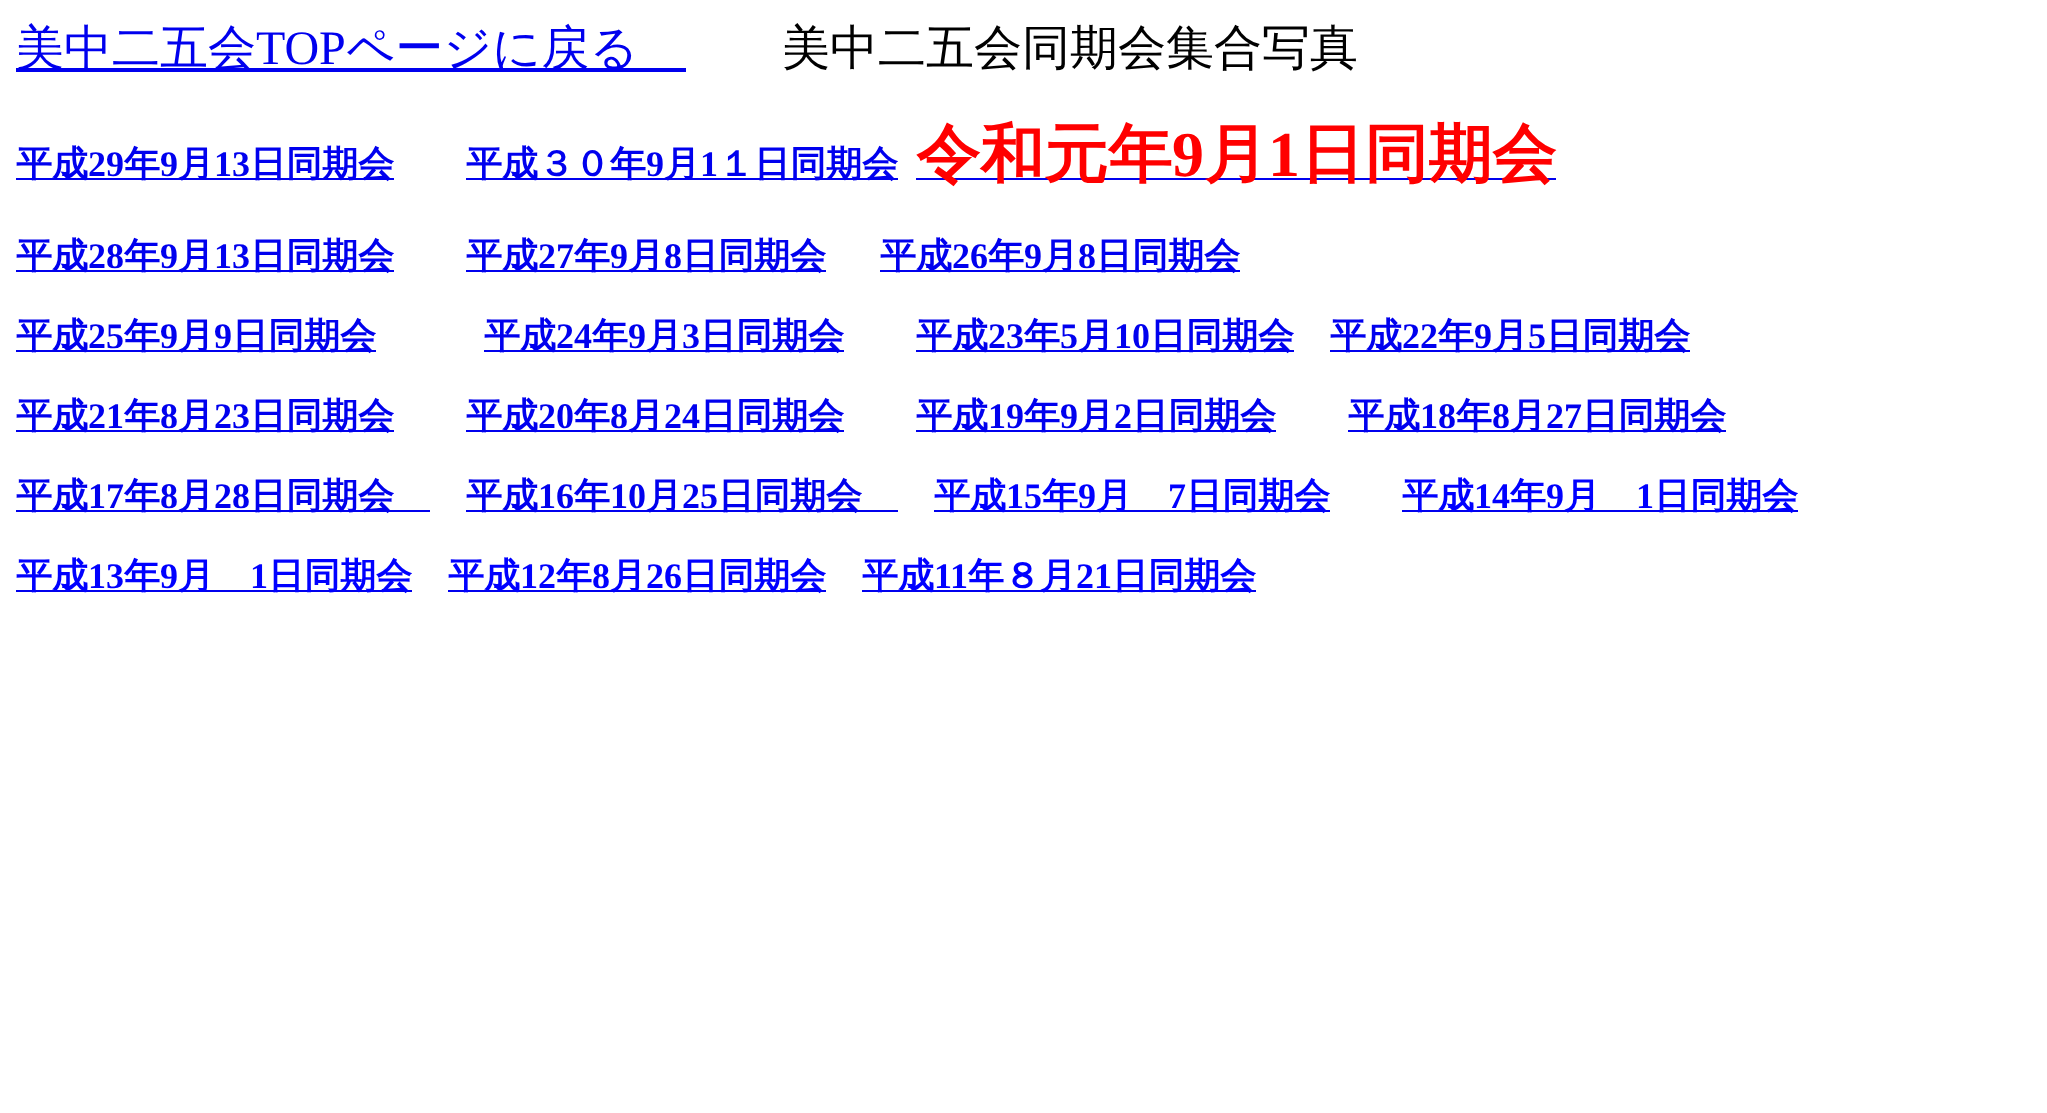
<svg xmlns="http://www.w3.org/2000/svg" width="2047" height="1113">
<rect width="100%" height="100%" fill="#fff"/>
<rect x="16" y="68" width="670" height="4" fill="#00e"/>
<text x="16" y="64" style="font-family:WenQuanYi Zen Hei;font-size:48px;font-weight:500;fill:#00e">美中二五会</text>
<text x="256" y="64" style="font-family:Liberation Serif;font-size:48px;fill:#00e">TOP</text>
<text x="346" y="64" style="font-family:WenQuanYi Zen Hei;font-size:48px;font-weight:500;fill:#00e">ページに戻る</text>
<text x="782" y="64" style="font-family:WenQuanYi Zen Hei;font-size:48px;font-weight:500;fill:#000">美中二五会同期会集合写真</text>
<rect x="16" y="178" width="378" height="2" fill="#00e"/>
<text x="16" y="176" style="font-family:WenQuanYi Zen Hei;font-size:36px;font-weight:bold;fill:#00e">平成</text>
<text x="88" y="176" style="font-family:Liberation Serif;font-size:36px;font-weight:bold;fill:#00e">29</text>
<text x="124" y="176" style="font-family:WenQuanYi Zen Hei;font-size:36px;font-weight:bold;fill:#00e">年</text>
<text x="160" y="176" style="font-family:Liberation Serif;font-size:36px;font-weight:bold;fill:#00e">9</text>
<text x="178" y="176" style="font-family:WenQuanYi Zen Hei;font-size:36px;font-weight:bold;fill:#00e">月</text>
<text x="214" y="176" style="font-family:Liberation Serif;font-size:36px;font-weight:bold;fill:#00e">13</text>
<text x="250" y="176" style="font-family:WenQuanYi Zen Hei;font-size:36px;font-weight:bold;fill:#00e">日同期会</text>
<rect x="466" y="178" width="432" height="2" fill="#00e"/>
<text x="466" y="176" style="font-family:WenQuanYi Zen Hei;font-size:36px;font-weight:bold;fill:#00e">平成３０年</text>
<text x="646" y="176" style="font-family:Liberation Serif;font-size:36px;font-weight:bold;fill:#00e">9</text>
<text x="664" y="176" style="font-family:WenQuanYi Zen Hei;font-size:36px;font-weight:bold;fill:#00e">月</text>
<text x="700" y="176" style="font-family:Liberation Serif;font-size:36px;font-weight:bold;fill:#00e">1</text>
<text x="718" y="176" style="font-family:WenQuanYi Zen Hei;font-size:36px;font-weight:bold;fill:#00e">１日同期会</text>
<rect x="916" y="178" width="640" height="2" fill="#00e"/>
<text x="916" y="176" style="font-family:WenQuanYi Zen Hei;font-size:64px;font-weight:bold;fill:#f00">令和元年</text>
<text x="1172" y="176" style="font-family:Liberation Serif;font-size:64px;font-weight:bold;fill:#f00">9</text>
<text x="1204" y="176" style="font-family:WenQuanYi Zen Hei;font-size:64px;font-weight:bold;fill:#f00">月</text>
<text x="1268" y="176" style="font-family:Liberation Serif;font-size:64px;font-weight:bold;fill:#f00">1</text>
<text x="1300" y="176" style="font-family:WenQuanYi Zen Hei;font-size:64px;font-weight:bold;fill:#f00">日同期会</text>
<rect x="16" y="270" width="378" height="2" fill="#00e"/>
<text x="16" y="268" style="font-family:WenQuanYi Zen Hei;font-size:36px;font-weight:bold;fill:#00e">平成</text>
<text x="88" y="268" style="font-family:Liberation Serif;font-size:36px;font-weight:bold;fill:#00e">28</text>
<text x="124" y="268" style="font-family:WenQuanYi Zen Hei;font-size:36px;font-weight:bold;fill:#00e">年</text>
<text x="160" y="268" style="font-family:Liberation Serif;font-size:36px;font-weight:bold;fill:#00e">9</text>
<text x="178" y="268" style="font-family:WenQuanYi Zen Hei;font-size:36px;font-weight:bold;fill:#00e">月</text>
<text x="214" y="268" style="font-family:Liberation Serif;font-size:36px;font-weight:bold;fill:#00e">13</text>
<text x="250" y="268" style="font-family:WenQuanYi Zen Hei;font-size:36px;font-weight:bold;fill:#00e">日同期会</text>
<rect x="466" y="270" width="360" height="2" fill="#00e"/>
<text x="466" y="268" style="font-family:WenQuanYi Zen Hei;font-size:36px;font-weight:bold;fill:#00e">平成</text>
<text x="538" y="268" style="font-family:Liberation Serif;font-size:36px;font-weight:bold;fill:#00e">27</text>
<text x="574" y="268" style="font-family:WenQuanYi Zen Hei;font-size:36px;font-weight:bold;fill:#00e">年</text>
<text x="610" y="268" style="font-family:Liberation Serif;font-size:36px;font-weight:bold;fill:#00e">9</text>
<text x="628" y="268" style="font-family:WenQuanYi Zen Hei;font-size:36px;font-weight:bold;fill:#00e">月</text>
<text x="664" y="268" style="font-family:Liberation Serif;font-size:36px;font-weight:bold;fill:#00e">8</text>
<text x="682" y="268" style="font-family:WenQuanYi Zen Hei;font-size:36px;font-weight:bold;fill:#00e">日同期会</text>
<rect x="880" y="270" width="360" height="2" fill="#00e"/>
<text x="880" y="268" style="font-family:WenQuanYi Zen Hei;font-size:36px;font-weight:bold;fill:#00e">平成</text>
<text x="952" y="268" style="font-family:Liberation Serif;font-size:36px;font-weight:bold;fill:#00e">26</text>
<text x="988" y="268" style="font-family:WenQuanYi Zen Hei;font-size:36px;font-weight:bold;fill:#00e">年</text>
<text x="1024" y="268" style="font-family:Liberation Serif;font-size:36px;font-weight:bold;fill:#00e">9</text>
<text x="1042" y="268" style="font-family:WenQuanYi Zen Hei;font-size:36px;font-weight:bold;fill:#00e">月</text>
<text x="1078" y="268" style="font-family:Liberation Serif;font-size:36px;font-weight:bold;fill:#00e">8</text>
<text x="1096" y="268" style="font-family:WenQuanYi Zen Hei;font-size:36px;font-weight:bold;fill:#00e">日同期会</text>
<rect x="16" y="350" width="360" height="2" fill="#00e"/>
<text x="16" y="348" style="font-family:WenQuanYi Zen Hei;font-size:36px;font-weight:bold;fill:#00e">平成</text>
<text x="88" y="348" style="font-family:Liberation Serif;font-size:36px;font-weight:bold;fill:#00e">25</text>
<text x="124" y="348" style="font-family:WenQuanYi Zen Hei;font-size:36px;font-weight:bold;fill:#00e">年</text>
<text x="160" y="348" style="font-family:Liberation Serif;font-size:36px;font-weight:bold;fill:#00e">9</text>
<text x="178" y="348" style="font-family:WenQuanYi Zen Hei;font-size:36px;font-weight:bold;fill:#00e">月</text>
<text x="214" y="348" style="font-family:Liberation Serif;font-size:36px;font-weight:bold;fill:#00e">9</text>
<text x="232" y="348" style="font-family:WenQuanYi Zen Hei;font-size:36px;font-weight:bold;fill:#00e">日同期会</text>
<rect x="484" y="350" width="360" height="2" fill="#00e"/>
<text x="484" y="348" style="font-family:WenQuanYi Zen Hei;font-size:36px;font-weight:bold;fill:#00e">平成</text>
<text x="556" y="348" style="font-family:Liberation Serif;font-size:36px;font-weight:bold;fill:#00e">24</text>
<text x="592" y="348" style="font-family:WenQuanYi Zen Hei;font-size:36px;font-weight:bold;fill:#00e">年</text>
<text x="628" y="348" style="font-family:Liberation Serif;font-size:36px;font-weight:bold;fill:#00e">9</text>
<text x="646" y="348" style="font-family:WenQuanYi Zen Hei;font-size:36px;font-weight:bold;fill:#00e">月</text>
<text x="682" y="348" style="font-family:Liberation Serif;font-size:36px;font-weight:bold;fill:#00e">3</text>
<text x="700" y="348" style="font-family:WenQuanYi Zen Hei;font-size:36px;font-weight:bold;fill:#00e">日同期会</text>
<rect x="916" y="350" width="378" height="2" fill="#00e"/>
<text x="916" y="348" style="font-family:WenQuanYi Zen Hei;font-size:36px;font-weight:bold;fill:#00e">平成</text>
<text x="988" y="348" style="font-family:Liberation Serif;font-size:36px;font-weight:bold;fill:#00e">23</text>
<text x="1024" y="348" style="font-family:WenQuanYi Zen Hei;font-size:36px;font-weight:bold;fill:#00e">年</text>
<text x="1060" y="348" style="font-family:Liberation Serif;font-size:36px;font-weight:bold;fill:#00e">5</text>
<text x="1078" y="348" style="font-family:WenQuanYi Zen Hei;font-size:36px;font-weight:bold;fill:#00e">月</text>
<text x="1114" y="348" style="font-family:Liberation Serif;font-size:36px;font-weight:bold;fill:#00e">10</text>
<text x="1150" y="348" style="font-family:WenQuanYi Zen Hei;font-size:36px;font-weight:bold;fill:#00e">日同期会</text>
<rect x="1330" y="350" width="360" height="2" fill="#00e"/>
<text x="1330" y="348" style="font-family:WenQuanYi Zen Hei;font-size:36px;font-weight:bold;fill:#00e">平成</text>
<text x="1402" y="348" style="font-family:Liberation Serif;font-size:36px;font-weight:bold;fill:#00e">22</text>
<text x="1438" y="348" style="font-family:WenQuanYi Zen Hei;font-size:36px;font-weight:bold;fill:#00e">年</text>
<text x="1474" y="348" style="font-family:Liberation Serif;font-size:36px;font-weight:bold;fill:#00e">9</text>
<text x="1492" y="348" style="font-family:WenQuanYi Zen Hei;font-size:36px;font-weight:bold;fill:#00e">月</text>
<text x="1528" y="348" style="font-family:Liberation Serif;font-size:36px;font-weight:bold;fill:#00e">5</text>
<text x="1546" y="348" style="font-family:WenQuanYi Zen Hei;font-size:36px;font-weight:bold;fill:#00e">日同期会</text>
<rect x="16" y="430" width="378" height="2" fill="#00e"/>
<text x="16" y="428" style="font-family:WenQuanYi Zen Hei;font-size:36px;font-weight:bold;fill:#00e">平成</text>
<text x="88" y="428" style="font-family:Liberation Serif;font-size:36px;font-weight:bold;fill:#00e">21</text>
<text x="124" y="428" style="font-family:WenQuanYi Zen Hei;font-size:36px;font-weight:bold;fill:#00e">年</text>
<text x="160" y="428" style="font-family:Liberation Serif;font-size:36px;font-weight:bold;fill:#00e">8</text>
<text x="178" y="428" style="font-family:WenQuanYi Zen Hei;font-size:36px;font-weight:bold;fill:#00e">月</text>
<text x="214" y="428" style="font-family:Liberation Serif;font-size:36px;font-weight:bold;fill:#00e">23</text>
<text x="250" y="428" style="font-family:WenQuanYi Zen Hei;font-size:36px;font-weight:bold;fill:#00e">日同期会</text>
<rect x="466" y="430" width="378" height="2" fill="#00e"/>
<text x="466" y="428" style="font-family:WenQuanYi Zen Hei;font-size:36px;font-weight:bold;fill:#00e">平成</text>
<text x="538" y="428" style="font-family:Liberation Serif;font-size:36px;font-weight:bold;fill:#00e">20</text>
<text x="574" y="428" style="font-family:WenQuanYi Zen Hei;font-size:36px;font-weight:bold;fill:#00e">年</text>
<text x="610" y="428" style="font-family:Liberation Serif;font-size:36px;font-weight:bold;fill:#00e">8</text>
<text x="628" y="428" style="font-family:WenQuanYi Zen Hei;font-size:36px;font-weight:bold;fill:#00e">月</text>
<text x="664" y="428" style="font-family:Liberation Serif;font-size:36px;font-weight:bold;fill:#00e">24</text>
<text x="700" y="428" style="font-family:WenQuanYi Zen Hei;font-size:36px;font-weight:bold;fill:#00e">日同期会</text>
<rect x="916" y="430" width="360" height="2" fill="#00e"/>
<text x="916" y="428" style="font-family:WenQuanYi Zen Hei;font-size:36px;font-weight:bold;fill:#00e">平成</text>
<text x="988" y="428" style="font-family:Liberation Serif;font-size:36px;font-weight:bold;fill:#00e">19</text>
<text x="1024" y="428" style="font-family:WenQuanYi Zen Hei;font-size:36px;font-weight:bold;fill:#00e">年</text>
<text x="1060" y="428" style="font-family:Liberation Serif;font-size:36px;font-weight:bold;fill:#00e">9</text>
<text x="1078" y="428" style="font-family:WenQuanYi Zen Hei;font-size:36px;font-weight:bold;fill:#00e">月</text>
<text x="1114" y="428" style="font-family:Liberation Serif;font-size:36px;font-weight:bold;fill:#00e">2</text>
<text x="1132" y="428" style="font-family:WenQuanYi Zen Hei;font-size:36px;font-weight:bold;fill:#00e">日同期会</text>
<rect x="1348" y="430" width="378" height="2" fill="#00e"/>
<text x="1348" y="428" style="font-family:WenQuanYi Zen Hei;font-size:36px;font-weight:bold;fill:#00e">平成</text>
<text x="1420" y="428" style="font-family:Liberation Serif;font-size:36px;font-weight:bold;fill:#00e">18</text>
<text x="1456" y="428" style="font-family:WenQuanYi Zen Hei;font-size:36px;font-weight:bold;fill:#00e">年</text>
<text x="1492" y="428" style="font-family:Liberation Serif;font-size:36px;font-weight:bold;fill:#00e">8</text>
<text x="1510" y="428" style="font-family:WenQuanYi Zen Hei;font-size:36px;font-weight:bold;fill:#00e">月</text>
<text x="1546" y="428" style="font-family:Liberation Serif;font-size:36px;font-weight:bold;fill:#00e">27</text>
<text x="1582" y="428" style="font-family:WenQuanYi Zen Hei;font-size:36px;font-weight:bold;fill:#00e">日同期会</text>
<rect x="16" y="510" width="414" height="2" fill="#00e"/>
<text x="16" y="508" style="font-family:WenQuanYi Zen Hei;font-size:36px;font-weight:bold;fill:#00e">平成</text>
<text x="88" y="508" style="font-family:Liberation Serif;font-size:36px;font-weight:bold;fill:#00e">17</text>
<text x="124" y="508" style="font-family:WenQuanYi Zen Hei;font-size:36px;font-weight:bold;fill:#00e">年</text>
<text x="160" y="508" style="font-family:Liberation Serif;font-size:36px;font-weight:bold;fill:#00e">8</text>
<text x="178" y="508" style="font-family:WenQuanYi Zen Hei;font-size:36px;font-weight:bold;fill:#00e">月</text>
<text x="214" y="508" style="font-family:Liberation Serif;font-size:36px;font-weight:bold;fill:#00e">28</text>
<text x="250" y="508" style="font-family:WenQuanYi Zen Hei;font-size:36px;font-weight:bold;fill:#00e">日同期会</text>
<rect x="466" y="510" width="432" height="2" fill="#00e"/>
<text x="466" y="508" style="font-family:WenQuanYi Zen Hei;font-size:36px;font-weight:bold;fill:#00e">平成</text>
<text x="538" y="508" style="font-family:Liberation Serif;font-size:36px;font-weight:bold;fill:#00e">16</text>
<text x="574" y="508" style="font-family:WenQuanYi Zen Hei;font-size:36px;font-weight:bold;fill:#00e">年</text>
<text x="610" y="508" style="font-family:Liberation Serif;font-size:36px;font-weight:bold;fill:#00e">10</text>
<text x="646" y="508" style="font-family:WenQuanYi Zen Hei;font-size:36px;font-weight:bold;fill:#00e">月</text>
<text x="682" y="508" style="font-family:Liberation Serif;font-size:36px;font-weight:bold;fill:#00e">25</text>
<text x="718" y="508" style="font-family:WenQuanYi Zen Hei;font-size:36px;font-weight:bold;fill:#00e">日同期会</text>
<rect x="934" y="510" width="396" height="2" fill="#00e"/>
<text x="934" y="508" style="font-family:WenQuanYi Zen Hei;font-size:36px;font-weight:bold;fill:#00f">平成</text>
<text x="1006" y="508" style="font-family:Liberation Serif;font-size:36px;font-weight:bold;fill:#00f">15</text>
<text x="1042" y="508" style="font-family:WenQuanYi Zen Hei;font-size:36px;font-weight:bold;fill:#00f">年</text>
<text x="1078" y="508" style="font-family:Liberation Serif;font-size:36px;font-weight:bold;fill:#00f">9</text>
<text x="1096" y="508" style="font-family:WenQuanYi Zen Hei;font-size:36px;font-weight:bold;fill:#00f">月</text>
<text x="1168" y="508" style="font-family:Liberation Serif;font-size:36px;font-weight:bold;fill:#00f">7</text>
<text x="1186" y="508" style="font-family:WenQuanYi Zen Hei;font-size:36px;font-weight:bold;fill:#00f">日同期会</text>
<rect x="1402" y="510" width="396" height="2" fill="#00e"/>
<text x="1402" y="508" style="font-family:WenQuanYi Zen Hei;font-size:36px;font-weight:bold;fill:#00f">平成</text>
<text x="1474" y="508" style="font-family:Liberation Serif;font-size:36px;font-weight:bold;fill:#00f">14</text>
<text x="1510" y="508" style="font-family:WenQuanYi Zen Hei;font-size:36px;font-weight:bold;fill:#00f">年</text>
<text x="1546" y="508" style="font-family:Liberation Serif;font-size:36px;font-weight:bold;fill:#00f">9</text>
<text x="1564" y="508" style="font-family:WenQuanYi Zen Hei;font-size:36px;font-weight:bold;fill:#00f">月</text>
<text x="1636" y="508" style="font-family:Liberation Serif;font-size:36px;font-weight:bold;fill:#00f">1</text>
<text x="1654" y="508" style="font-family:WenQuanYi Zen Hei;font-size:36px;font-weight:bold;fill:#00f">日同期会</text>
<rect x="16" y="590" width="396" height="2" fill="#00e"/>
<text x="16" y="588" style="font-family:WenQuanYi Zen Hei;font-size:36px;font-weight:bold;fill:#00f">平成</text>
<text x="88" y="588" style="font-family:Liberation Serif;font-size:36px;font-weight:bold;fill:#00f">13</text>
<text x="124" y="588" style="font-family:WenQuanYi Zen Hei;font-size:36px;font-weight:bold;fill:#00f">年</text>
<text x="160" y="588" style="font-family:Liberation Serif;font-size:36px;font-weight:bold;fill:#00f">9</text>
<text x="178" y="588" style="font-family:WenQuanYi Zen Hei;font-size:36px;font-weight:bold;fill:#00f">月</text>
<text x="250" y="588" style="font-family:Liberation Serif;font-size:36px;font-weight:bold;fill:#00f">1</text>
<text x="268" y="588" style="font-family:WenQuanYi Zen Hei;font-size:36px;font-weight:bold;fill:#00f">日同期会</text>
<rect x="448" y="590" width="378" height="2" fill="#00e"/>
<text x="448" y="588" style="font-family:WenQuanYi Zen Hei;font-size:36px;font-weight:bold;fill:#00f">平成</text>
<text x="520" y="588" style="font-family:Liberation Serif;font-size:36px;font-weight:bold;fill:#00f">12</text>
<text x="556" y="588" style="font-family:WenQuanYi Zen Hei;font-size:36px;font-weight:bold;fill:#00f">年</text>
<text x="592" y="588" style="font-family:Liberation Serif;font-size:36px;font-weight:bold;fill:#00f">8</text>
<text x="610" y="588" style="font-family:WenQuanYi Zen Hei;font-size:36px;font-weight:bold;fill:#00f">月</text>
<text x="646" y="588" style="font-family:Liberation Serif;font-size:36px;font-weight:bold;fill:#00f">26</text>
<text x="682" y="588" style="font-family:WenQuanYi Zen Hei;font-size:36px;font-weight:bold;fill:#00f">日同期会</text>
<rect x="862" y="590" width="394" height="2" fill="#00e"/>
<text x="862" y="588" style="font-family:WenQuanYi Zen Hei;font-size:36px;font-weight:bold;fill:#00f">平成</text>
<text x="934" y="588" style="font-family:Liberation Serif;font-size:36px;font-weight:bold;fill:#00f">11</text>
<text x="968" y="588" style="font-family:WenQuanYi Zen Hei;font-size:36px;font-weight:bold;fill:#00f">年８月</text>
<text x="1076" y="588" style="font-family:Liberation Serif;font-size:36px;font-weight:bold;fill:#00f">21</text>
<text x="1112" y="588" style="font-family:WenQuanYi Zen Hei;font-size:36px;font-weight:bold;fill:#00f">日同期会</text>
</svg>
